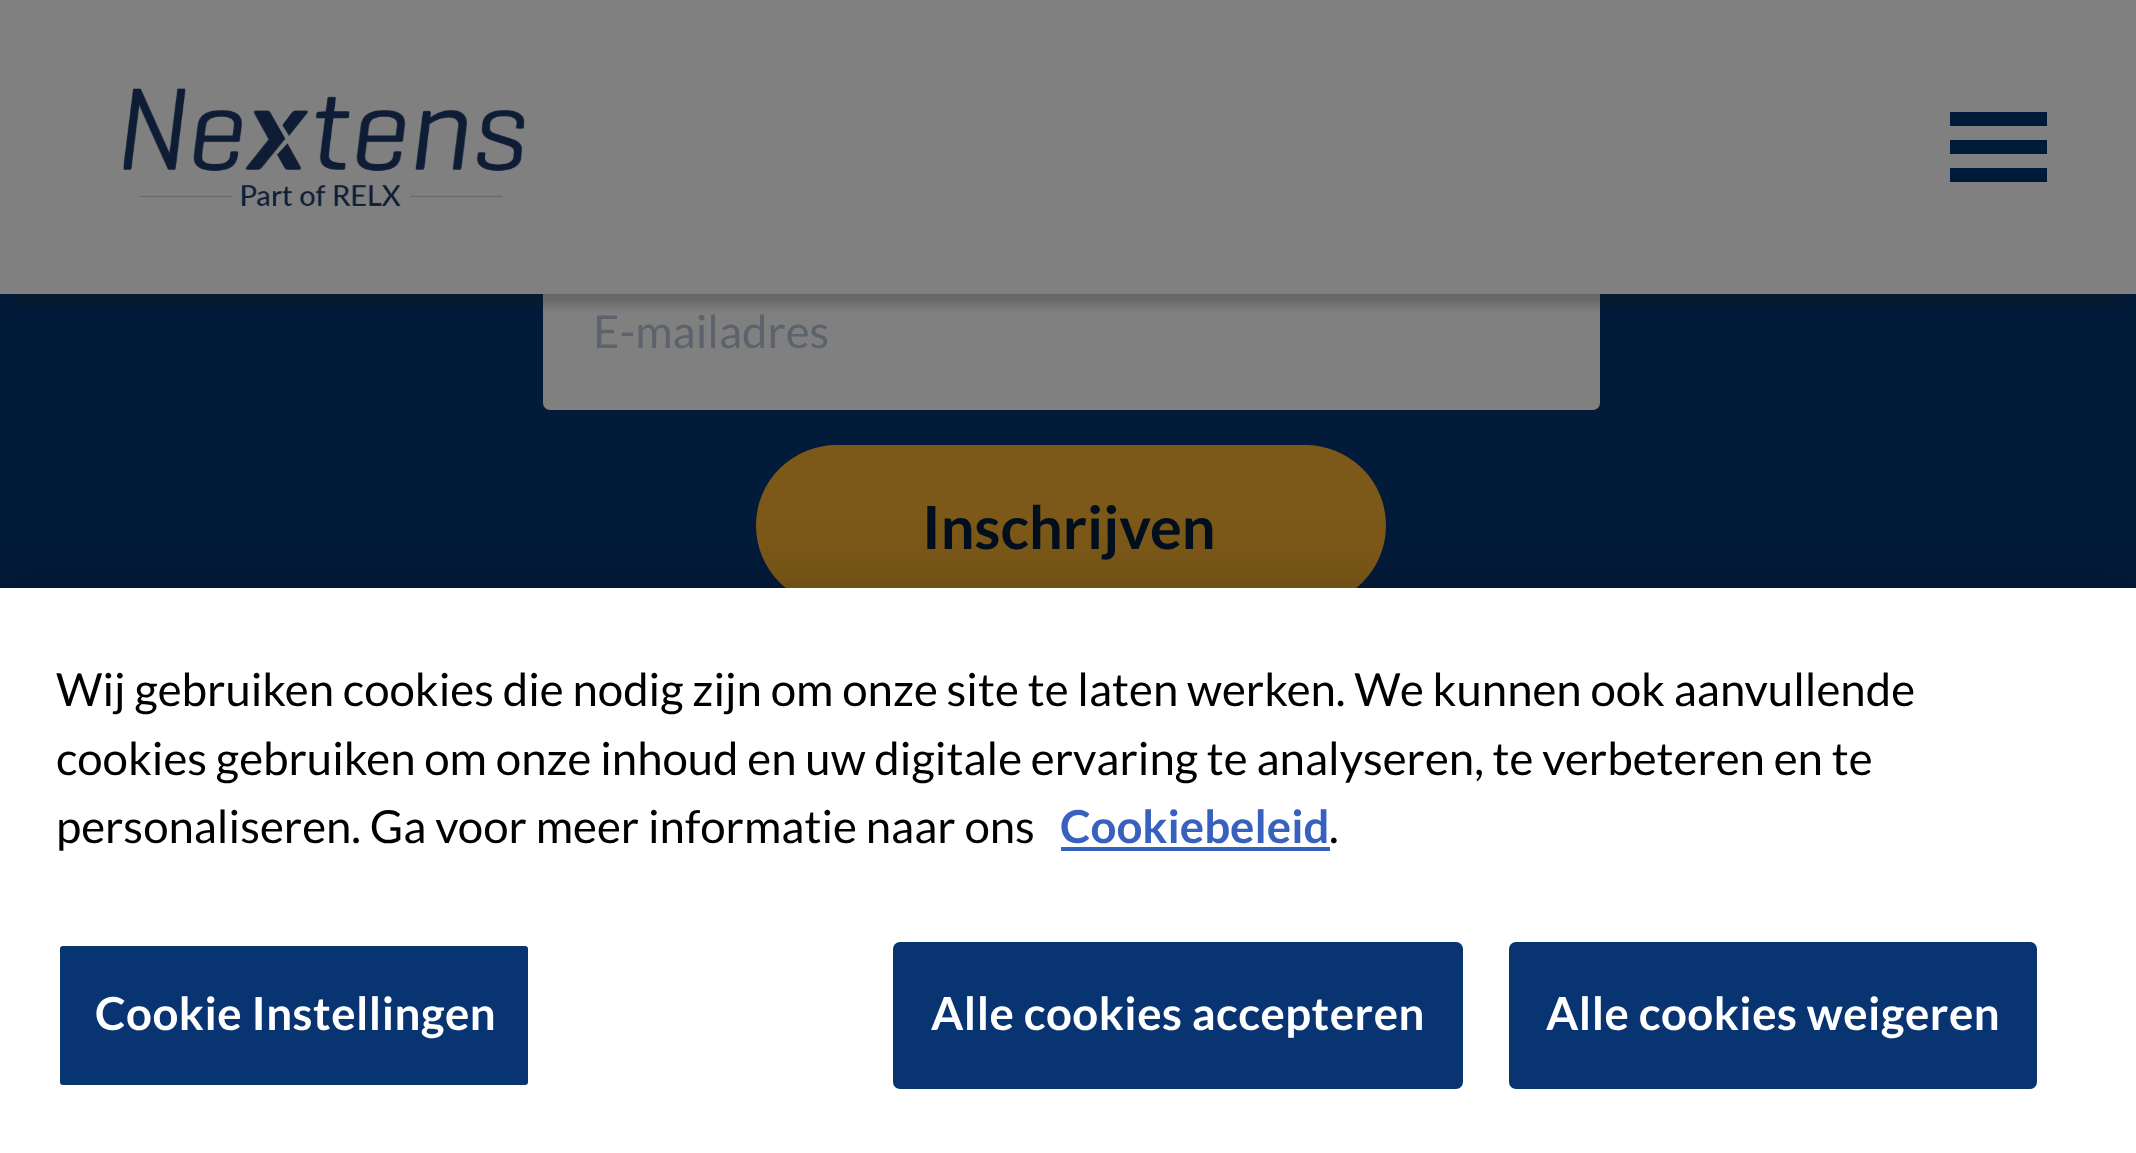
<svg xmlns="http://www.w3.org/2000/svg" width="2136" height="1153">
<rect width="100%" height="100%" fill="#031b3a"/>
<rect x="543" y="249" width="1057" height="161" rx="7" fill="#808080"/>
<rect x="11" y="32" width="2117" height="273" fill="#19191940" filter="blur(5px)"/>
<rect width="2136" height="294" fill="#808080"/>
<image x="123" y="88" width="402" height="118" href="media/1.png"/>
<path d="M1950 182h97v-14h-97zm0-70v14h97v-14zm0 42h97v-14h-97z" fill="#001b39"/>
<text x="593" y="348" style="font-family:Lato;font-size:45.5px;fill:#5d636c">E-mailadres</text>
<rect x="759.5" y="448.5" width="623" height="154" rx="77" fill="#7c5918" stroke="#7c5918" stroke-width="7"/>
<text x="922" y="549" style="font-family:Lato;font-size:59.5px;font-weight:bold;fill:#020f1e">Inschrijven</text>
<rect y="588" width="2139" height="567" fill="#00000033" filter="blur(31.5px)"/>
<rect y="588" width="2136" height="565" fill="#fff"/>
<text x="56" y="706" style="font-family:Lato;font-size:45.55px;fill:#000">Wij gebruiken cookies die nodig zijn om onze site te laten werken. We kunnen ook aanvullende</text>
<text x="56" y="775" style="font-family:Lato;font-size:45.55px;fill:#000">cookies gebruiken om onze inhoud en uw digitale ervaring te analyseren, te verbeteren en te</text>
<text x="56" y="843" style="font-family:Lato;font-size:45.55px;fill:#000">personaliseren. Ga voor meer informatie naar ons</text>
<text x="1060" y="843" style="font-family:Lato;font-size:45.55px;font-weight:bold;fill:#3860be">Cookiebeleid</text>
<rect x="1061" y="847" width="269" height="4" fill="#3860be"/>
<text x="1329" y="843" style="font-family:Lato;font-size:45.55px;fill:#000">.</text>
<rect x="58" y="944" width="472" height="143" rx="5" fill="#083472" stroke="#fff" stroke-width="4"/>
<text x="95" y="1030" style="font-family:Lato;font-size:45.55px;font-weight:bold;letter-spacing:0.5px;fill:#fff">Cookie Instellingen</text>
<rect x="895" y="944" width="566" height="143" rx="5" fill="#083472" stroke="#083472" stroke-width="4"/>
<text x="931" y="1030" style="font-family:Lato;font-size:45.55px;font-weight:bold;letter-spacing:0.5px;fill:#fff">Alle cookies accepteren</text>
<rect x="1511" y="944" width="524" height="143" rx="5" fill="#083472" stroke="#083472" stroke-width="4"/>
<text x="1546" y="1030" style="font-family:Lato;font-size:45.55px;font-weight:bold;letter-spacing:0.5px;fill:#fff">Alle cookies weigeren</text>
</svg>
